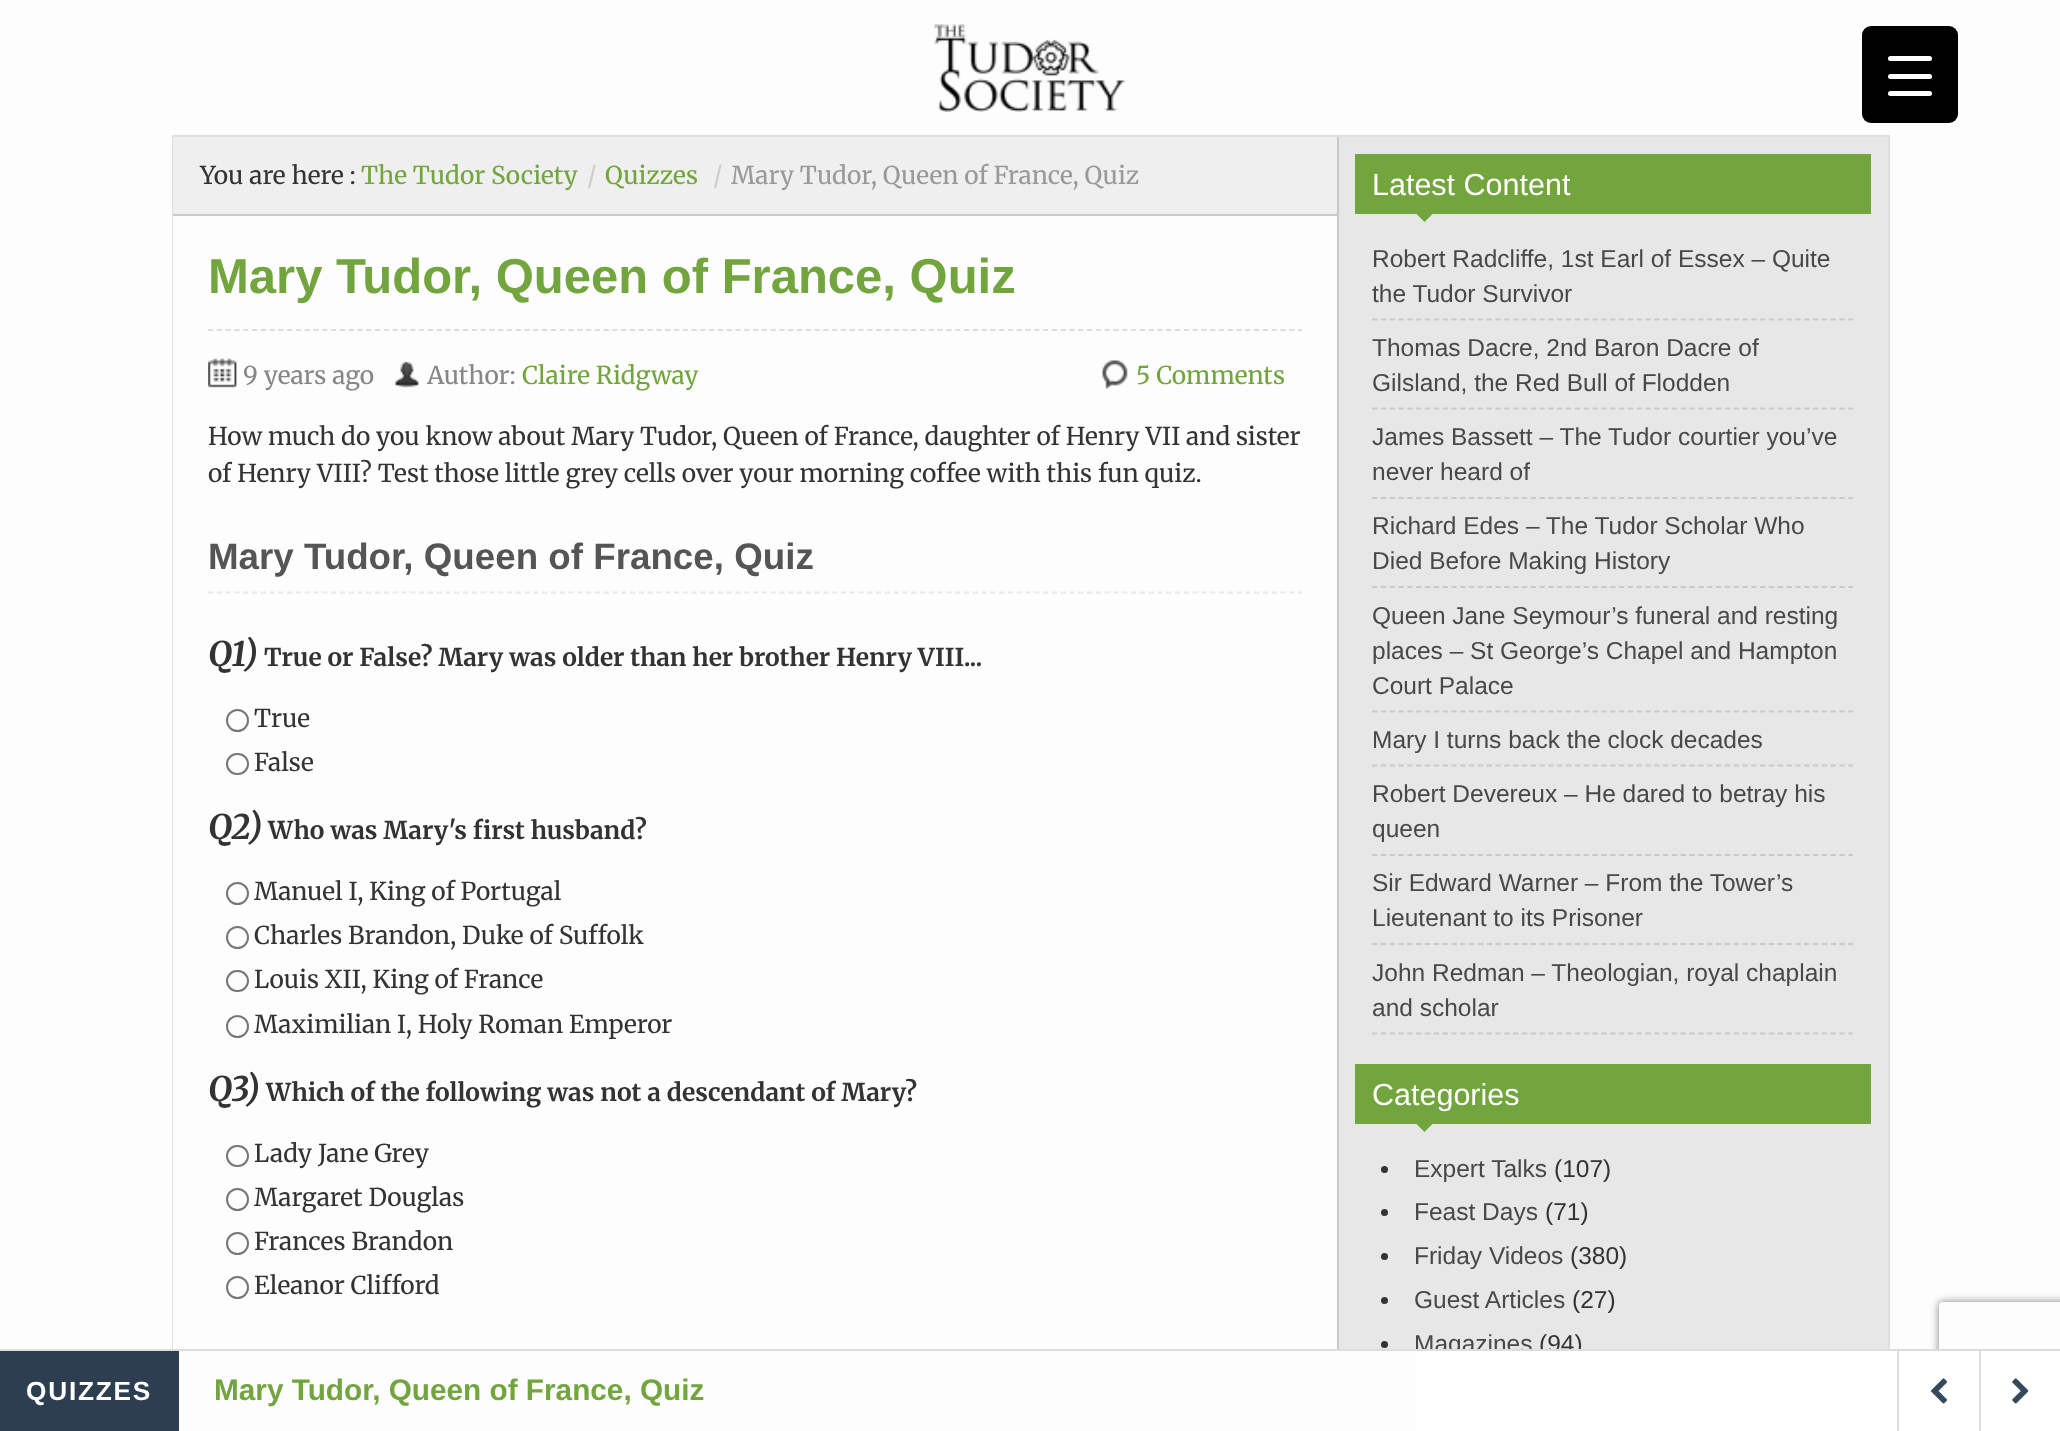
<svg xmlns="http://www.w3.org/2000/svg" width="2060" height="1431">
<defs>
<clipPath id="clip1"><path d="M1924 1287h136v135h-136zm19 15h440c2 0 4 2 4 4v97c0 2-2 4-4 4h-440c-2 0-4-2-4-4v-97c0-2 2-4 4-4z" clip-rule="evenodd"/></clipPath>
</defs>
<rect width="100%" height="100%" fill="#fdfdfd"/>
<image x="934" y="24" width="192" height="88" href="media/1.png"/>
<rect x="1862" y="26" width="96" height="97" rx="9" fill="#000"/>
<rect x="1888" y="74" width="44" height="5" rx="2.5" fill="#fff"/>
<rect x="1888" y="56" width="44" height="5" rx="2.5" fill="#fff"/>
<rect x="1888" y="91" width="44" height="5" rx="2.5" fill="#fff"/>
<rect x="1339" y="137" width="549" height="1212" fill="#e8e7e7"/>
<rect x="173" y="136" width="1716" height="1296" fill="none" stroke="#dfdfdf" stroke-width="2"/>
<rect x="173" y="216" width="1" height="1133" fill="#fff"/>
<rect x="1337" y="137" width="2" height="1212" fill="#c9c9c9"/>
<rect x="173" y="137" width="1164" height="77" fill="#efefef"/>
<rect x="173" y="214" width="1164" height="2" fill="#c9c9c9"/>
<text x="200" y="184" style="font-family:Merriweather;font-size:24.5px;fill:#333">You are here :</text>
<text x="361" y="184" style="font-family:Merriweather;font-size:24.5px;fill:#73a53e">The Tudor Society</text>
<text x="587" y="184" style="font-family:Merriweather;font-size:24.5px;fill:#ccc">/</text>
<text x="605" y="184" style="font-family:Merriweather;font-size:24.5px;fill:#73a53e">Quizzes</text>
<text x="713" y="184" style="font-family:Merriweather;font-size:24.5px;fill:#ccc">/</text>
<text x="731" y="184" style="font-family:Merriweather;font-size:24.5px;fill:#999">Mary Tudor, Queen of France, Quiz</text>
<path d="M208 330h1094" fill="none" stroke="#ddd" stroke-width="1.8" stroke-dasharray="5.25 3.54"/>
<text x="208" y="293" style="font-family:Liberation Sans;font-size:49px;font-weight:bold;fill:#73a53e">Mary Tudor, Queen of France, Quiz</text>
<image x="208" y="358" width="29" height="30" href="media/2.png"/>
<text x="243" y="384" style="font-family:Merriweather;font-size:24.5px;fill:#878686">9 years ago</text>
<image x="395" y="361" width="24" height="27" href="media/3.png"/>
<text x="427" y="384" style="font-family:Merriweather;font-size:24.5px;fill:#878686">Author:</text>
<text x="522" y="384" style="font-family:Merriweather;font-size:24.5px;fill:#73a53e">Claire Ridgway</text>
<image x="1102" y="360" width="26" height="29" href="media/4.png"/>
<text x="1136" y="384" style="font-family:Merriweather;font-size:24.5px;fill:#73a53e">5 Comments</text>
<text x="208" y="445" style="font-family:Merriweather;font-size:24.5px;fill:#333">How much do you know about Mary Tudor, Queen of France, daughter of Henry VII and sister</text>
<text x="208" y="482" style="font-family:Merriweather;font-size:24.5px;fill:#333">of Henry VIII? Test those little grey cells over your morning coffee with this fun quiz.</text>
<path d="M208 592.5h1094" fill="none" stroke="#e8e8e8" stroke-width="1.8" stroke-dasharray="5.25 3.54"/>
<text x="208" y="569" style="font-family:Liberation Sans;font-size:36.75px;font-weight:bold;fill:#555">Mary Tudor, Queen of France, Quiz</text>
<text x="208" y="666" style="font-family:Merriweather;font-size:34px;font-weight:bold;font-style:italic;fill:#333">Q1)</text>
<text x="264" y="666" style="font-family:Merriweather;font-size:24.5px;font-weight:bold;fill:#333">True or False? Mary was older than her brother Henry VIII...</text>
<circle cx="237.5" cy="720.5" r="10.5" fill="none" stroke="#767676" stroke-width="2"/>
<text x="254" y="727" style="font-family:Merriweather;font-size:24.5px;fill:#333">True</text>
<rect x="227" y="754" width="21" height="20" rx="10" fill="none" stroke="#767676" stroke-width="2"/>
<text x="254" y="771" style="font-family:Merriweather;font-size:24.5px;fill:#333">False</text>
<text x="208" y="839" style="font-family:Merriweather;font-size:34px;font-weight:bold;font-style:italic;fill:#333">Q2)</text>
<text x="268" y="839" style="font-family:Merriweather;font-size:24.5px;font-weight:bold;fill:#333">Who was Mary's first husband?</text>
<circle cx="237.5" cy="893.5" r="10.5" fill="none" stroke="#767676" stroke-width="2"/>
<text x="254" y="900" style="font-family:Merriweather;font-size:24.5px;fill:#333">Manuel I, King of Portugal</text>
<circle cx="237.5" cy="937.5" r="10.5" fill="none" stroke="#767676" stroke-width="2"/>
<text x="254" y="944" style="font-family:Merriweather;font-size:24.5px;fill:#333">Charles Brandon, Duke of Suffolk</text>
<rect x="227" y="971" width="21" height="20" rx="10" fill="none" stroke="#767676" stroke-width="2"/>
<text x="254" y="988" style="font-family:Merriweather;font-size:24.5px;fill:#333">Louis XII, King of France</text>
<circle cx="237.5" cy="1026.5" r="10.5" fill="none" stroke="#767676" stroke-width="2"/>
<text x="254" y="1033" style="font-family:Merriweather;font-size:24.5px;fill:#333">Maximilian I, Holy Roman Emperor</text>
<text x="208" y="1101" style="font-family:Merriweather;font-size:34px;font-weight:bold;font-style:italic;fill:#333">Q3)</text>
<text x="266" y="1101" style="font-family:Merriweather;font-size:24.5px;font-weight:bold;fill:#333">Which of the following was not a descendant of Mary?</text>
<rect x="227" y="1146" width="21" height="20" rx="10" fill="none" stroke="#767676" stroke-width="2"/>
<text x="254" y="1162" style="font-family:Merriweather;font-size:24.5px;fill:#333">Lady Jane Grey</text>
<circle cx="237.5" cy="1199.5" r="10.5" fill="none" stroke="#767676" stroke-width="2"/>
<text x="254" y="1206" style="font-family:Merriweather;font-size:24.5px;fill:#333">Margaret Douglas</text>
<circle cx="237.5" cy="1243.5" r="10.5" fill="none" stroke="#767676" stroke-width="2"/>
<text x="254" y="1250" style="font-family:Merriweather;font-size:24.5px;fill:#333">Frances Brandon</text>
<circle cx="237.5" cy="1287.5" r="10.5" fill="none" stroke="#767676" stroke-width="2"/>
<text x="254" y="1294" style="font-family:Merriweather;font-size:24.5px;fill:#333">Eleanor Clifford</text>
<rect x="1355" y="154" width="516" height="60" fill="#73a53e"/>
<text x="1372" y="195" style="font-family:Liberation Sans;font-size:30.5px;fill:#fff">Latest Content</text>
<path d="M1416 213.5h17l-8.5 8.5z" fill="#73a53e"/>
<path d="M1372 319.5h481" fill="none" stroke="#c9c9c9" stroke-width="1.8" stroke-dasharray="5.25 3.57"/>
<text x="1372" y="267" style="font-family:Liberation Sans;font-size:24.5px;fill:#484848">Robert Radcliffe, 1st Earl of Essex – Quite</text>
<text x="1372" y="302" style="font-family:Liberation Sans;font-size:24.5px;fill:#484848">the Tudor Survivor</text>
<path d="M1372 408.5h481" fill="none" stroke="#c9c9c9" stroke-width="1.8" stroke-dasharray="5.25 3.57"/>
<text x="1372" y="356" style="font-family:Liberation Sans;font-size:24.5px;fill:#484848">Thomas Dacre, 2nd Baron Dacre of</text>
<text x="1372" y="391" style="font-family:Liberation Sans;font-size:24.5px;fill:#484848">Gilsland, the Red Bull of Flodden</text>
<path d="M1372 498h481" fill="none" stroke="#c9c9c9" stroke-width="1.8" stroke-dasharray="5.25 3.57"/>
<text x="1372" y="445" style="font-family:Liberation Sans;font-size:24.5px;fill:#484848">James Bassett – The Tudor courtier you’ve</text>
<text x="1372" y="480" style="font-family:Liberation Sans;font-size:24.5px;fill:#484848">never heard of</text>
<path d="M1372 587h481" fill="none" stroke="#c9c9c9" stroke-width="1.8" stroke-dasharray="5.25 3.57"/>
<text x="1372" y="534" style="font-family:Liberation Sans;font-size:24.5px;fill:#484848">Richard Edes – The Tudor Scholar Who</text>
<text x="1372" y="569" style="font-family:Liberation Sans;font-size:24.5px;fill:#484848">Died Before Making History</text>
<path d="M1372 711.5h481" fill="none" stroke="#c9c9c9" stroke-width="1.8" stroke-dasharray="5.25 3.57"/>
<text x="1372" y="624" style="font-family:Liberation Sans;font-size:24.5px;fill:#484848">Queen Jane Seymour’s funeral and resting</text>
<text x="1372" y="659" style="font-family:Liberation Sans;font-size:24.5px;fill:#484848">places – St George’s Chapel and Hampton</text>
<text x="1372" y="694" style="font-family:Liberation Sans;font-size:24.5px;fill:#484848">Court Palace</text>
<path d="M1372 765.5h481" fill="none" stroke="#c9c9c9" stroke-width="1.8" stroke-dasharray="5.25 3.57"/>
<text x="1372" y="748" style="font-family:Liberation Sans;font-size:24.5px;fill:#484848">Mary I turns back the clock decades</text>
<path d="M1372 855h481" fill="none" stroke="#c9c9c9" stroke-width="1.8" stroke-dasharray="5.25 3.57"/>
<text x="1372" y="802" style="font-family:Liberation Sans;font-size:24.5px;fill:#484848">Robert Devereux – He dared to betray his</text>
<text x="1372" y="837" style="font-family:Liberation Sans;font-size:24.5px;fill:#484848">queen</text>
<path d="M1372 944h481" fill="none" stroke="#c9c9c9" stroke-width="1.8" stroke-dasharray="5.25 3.57"/>
<text x="1372" y="891" style="font-family:Liberation Sans;font-size:24.5px;fill:#484848">Sir Edward Warner – From the Tower’s</text>
<text x="1372" y="926" style="font-family:Liberation Sans;font-size:24.5px;fill:#484848">Lieutenant to its Prisoner</text>
<path d="M1372 1033.5h481" fill="none" stroke="#c9c9c9" stroke-width="1.8" stroke-dasharray="5.25 3.57"/>
<text x="1372" y="981" style="font-family:Liberation Sans;font-size:24.5px;fill:#484848">John Redman – Theologian, royal chaplain</text>
<text x="1372" y="1016" style="font-family:Liberation Sans;font-size:24.5px;fill:#484848">and scholar</text>
<rect x="1355" y="1064" width="516" height="60" fill="#73a53e"/>
<text x="1372" y="1105" style="font-family:Liberation Sans;font-size:30.5px;fill:#fff">Categories</text>
<path d="M1416 1123.5h17l-8.5 8.5z" fill="#73a53e"/>
<circle cx="1384.5" cy="1169.5" r="3.5" fill="#333"/>
<text x="1414" y="1177" style="font-family:Liberation Sans;font-size:24.5px;fill:#484848">Expert Talks</text>
<text x="1554" y="1177" style="font-family:Liberation Sans;font-size:24.5px;fill:#333">(107)</text>
<circle cx="1384.5" cy="1212.5" r="3.5" fill="#333"/>
<text x="1414" y="1220" style="font-family:Liberation Sans;font-size:24.5px;fill:#484848">Feast Days</text>
<text x="1545" y="1220" style="font-family:Liberation Sans;font-size:24.5px;fill:#333">(71)</text>
<circle cx="1384.5" cy="1256.5" r="3.5" fill="#333"/>
<text x="1414" y="1264" style="font-family:Liberation Sans;font-size:24.5px;fill:#484848">Friday Videos</text>
<text x="1570" y="1264" style="font-family:Liberation Sans;font-size:24.5px;fill:#333">(380)</text>
<circle cx="1384.5" cy="1300.5" r="3.5" fill="#333"/>
<text x="1414" y="1308" style="font-family:Liberation Sans;font-size:24.5px;fill:#484848">Guest Articles</text>
<text x="1572" y="1308" style="font-family:Liberation Sans;font-size:24.5px;fill:#333">(27)</text>
<circle cx="1384.5" cy="1344.5" r="3.5" fill="#333"/>
<text x="1414" y="1352" style="font-family:Liberation Sans;font-size:24.5px;fill:#484848">Magazines</text>
<text x="1539" y="1352" style="font-family:Liberation Sans;font-size:24.5px;fill:#333">(94)</text>
<g clip-path="url(#clip1)">
<rect x="1939" y="1302" width="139" height="105" rx="4" fill="#808080" filter="blur(4.5px)"/>
</g>
<rect x="1416" y="1351" width="644" height="80" fill="#fff"/>
<rect y="1349" width="2060" height="2" fill="#ddd"/>
<rect y="1351" width="179" height="80" fill="#2c3e50"/>
<text x="26" y="1400" style="font-family:Liberation Sans;font-size:26.25px;font-weight:bold;letter-spacing:1.75px;fill:#fff">QUIZZES</text>
<text x="214" y="1400" style="font-family:Liberation Sans;font-size:29.75px;font-weight:bold;fill:#73a53e">Mary Tudor, Queen of France, Quiz</text>
<rect x="1897" y="1351" width="2" height="80" fill="#ddd"/>
<image x="1930" y="1378" width="18" height="26" href="media/5.png"/>
<rect x="1979" y="1351" width="2" height="80" fill="#ddd"/>
<image x="2012" y="1378" width="17" height="26" href="media/6.png"/>
</svg>
